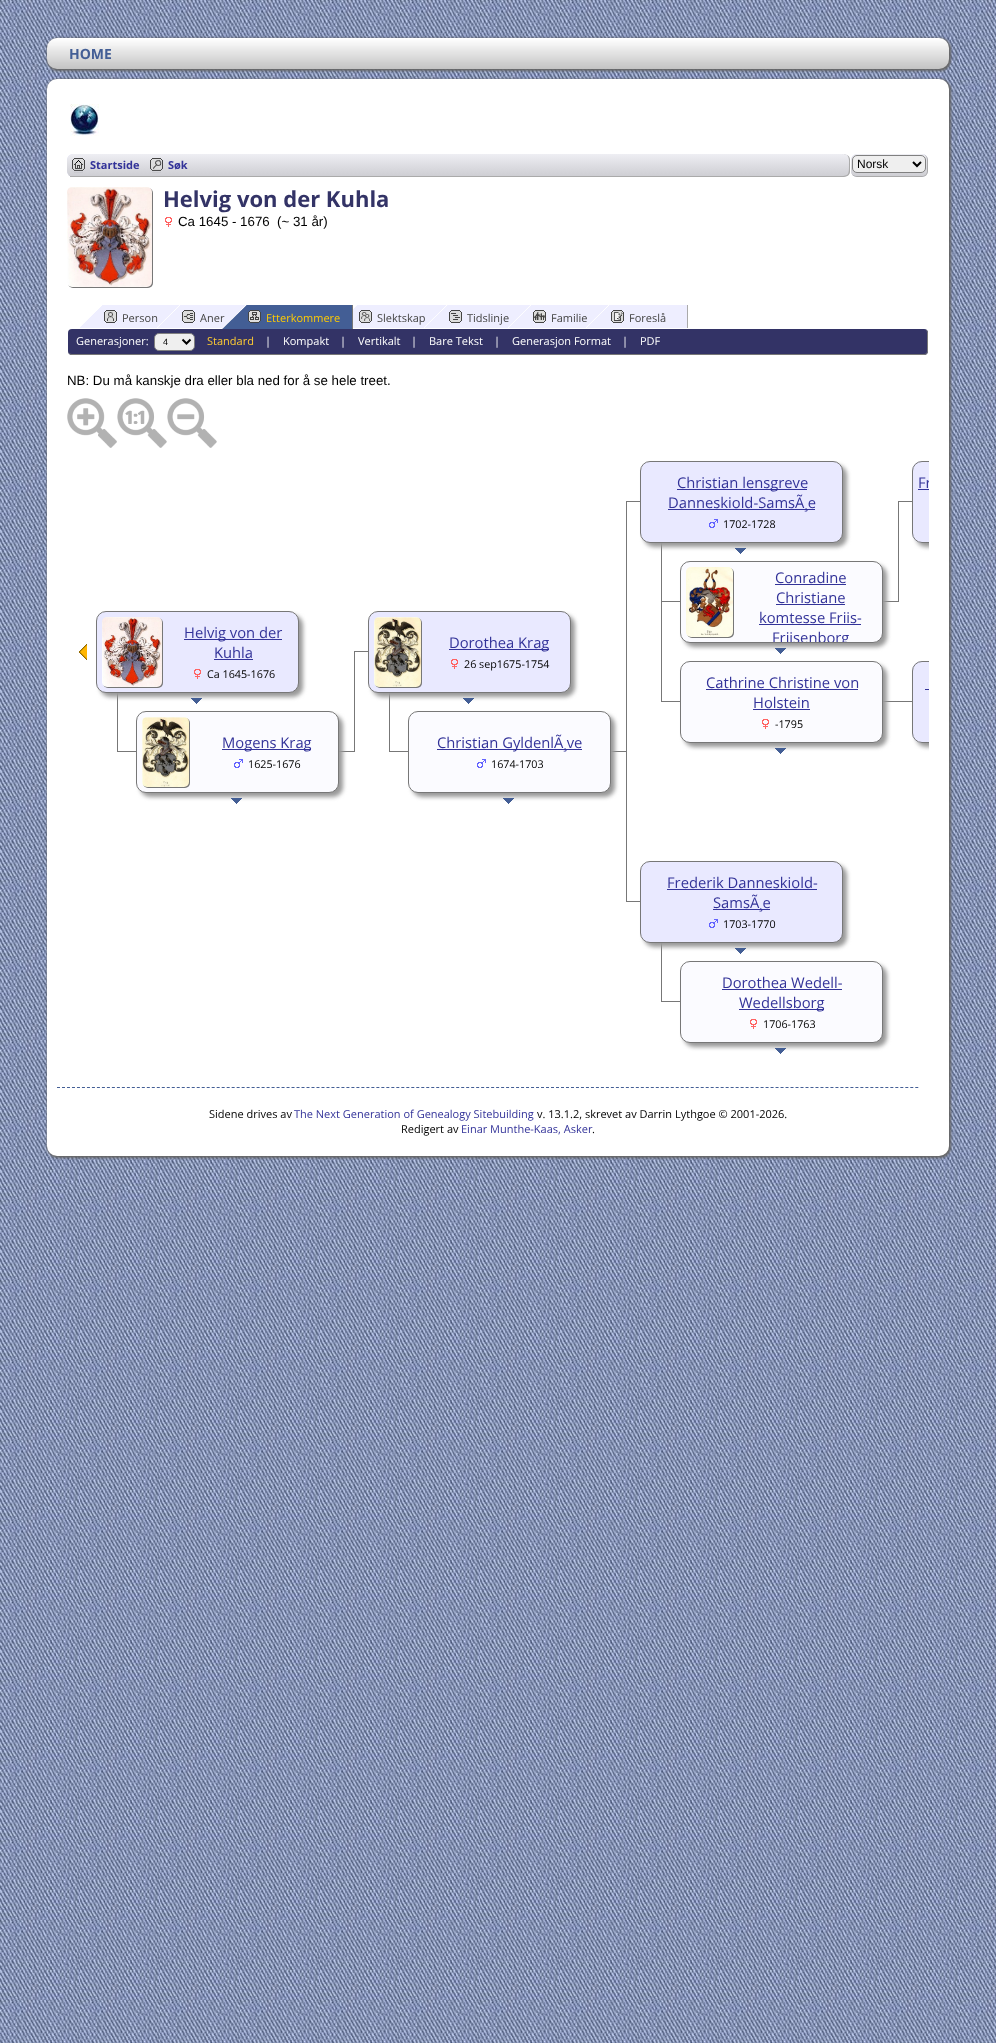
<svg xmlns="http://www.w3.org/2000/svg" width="996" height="2043">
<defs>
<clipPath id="clip1"><rect x="67" y="154" width="862" height="23" rx="6"/></clipPath>
<linearGradient id="g1" gradientUnits="userSpaceOnUse" x1="498" y1="154" x2="498" y2="176"><stop offset="0" stop-color="#eeeef3"/><stop offset="1" stop-color="#ceced3"/></linearGradient>
<clipPath id="clip2"><path d="M839 154h5c3.5 0 6 2.5 6 6v11c0 3.5-2.5 6-6 6h-5z"/></clipPath>
<linearGradient id="g2" gradientUnits="userSpaceOnUse" x1="844" y1="154" x2="844" y2="176"><stop offset="0" stop-color="#eeeef3"/><stop offset="1" stop-color="#ceced3"/></linearGradient>
<linearGradient id="g3" gradientUnits="userSpaceOnUse" x1="844" y1="176" x2="844" y2="198"><stop offset="0" stop-color="#eeeef3"/><stop offset="1" stop-color="#ceced3"/></linearGradient>
<clipPath id="clip3"><rect x="851" y="154" width="77" height="23" rx="6"/></clipPath>
<linearGradient id="g4" gradientUnits="userSpaceOnUse" x1="889" y1="154" x2="889" y2="176"><stop offset="0" stop-color="#eeeef3"/><stop offset="1" stop-color="#ceced3"/></linearGradient>
<clipPath id="clip4"><rect x="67" y="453" width="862" height="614"/></clipPath>
<clipPath id="clip5"><rect x="67" y="453" width="862" height="614"/></clipPath>
<clipPath id="clip6"><rect x="681" y="562" width="201" height="80" rx="9"/></clipPath>
</defs>
<rect width="100%" height="100%" fill="#fff"/>
<image x="0" y="0" width="996" height="2043" href="media/1.png"/>
<rect x="47" y="38" width="904" height="33" rx="11" fill="#666" filter="blur(1px)"/>
<image x="47" y="38" width="902" height="31" href="media/2.png"/>
<text x="69" y="59" style="font-family:Open Sans;font-size:14px;font-weight:bold;fill:#435e95">HOME</text>
<rect x="47" y="79" width="904" height="1079" rx="11" fill="#666" filter="blur(1px)"/>
<rect x="47" y="79" width="902" height="1077" rx="10" fill="#fff"/>
<image x="70" y="104" width="29" height="32" href="media/3.png"/>
<rect x="67" y="154" width="862" height="23" rx="6" fill="#e0e0f7"/>
<g clip-path="url(#clip1)">
<path d="M73 154h850c3.5 0 6 2.5 6 6v16h-862v-16c0-3.5 2.5-6 6-6z" fill="url(#g1)"/>
</g>
<rect x="70" y="176" width="769" height="1" fill="#aaa"/>
<image x="72" y="158" width="13" height="15" href="media/4.png"/>
<text x="90" y="169" style="font-family:Open Sans;font-size:11px;font-weight:bold;fill:#339">Startside</text>
<image x="150" y="158" width="13" height="15" href="media/5.png"/>
<text x="168" y="169" style="font-family:Open Sans;font-size:11px;font-weight:bold;fill:#339">Søk</text>
<rect x="844" y="154" width="85" height="23" fill="#fff"/>
<g clip-path="url(#clip2)">
<rect x="839" y="154" width="11" height="22" fill="url(#g2)"/>
<rect x="839" y="176" width="11" height="1" fill="url(#g3)"/>
</g>
<path d="M839 154c4 0 10-.5 11 5v13c-1 5.5-7 5-11 5zm0 0h6c5 1.5 4 8 4 11.5c0 10-.5 10.5-10 10.5z" fill="#aaa" fill-rule="evenodd"/>
<rect x="851" y="154" width="77" height="23" rx="6" fill="#e0e0f7"/>
<g clip-path="url(#clip3)">
<path d="M857 154h65c3.5 0 6 2.5 6 6v16h-77v-16c0-3.5 2.5-6 6-6z" fill="url(#g4)"/>
</g>
<path d="M857 154h65c3 0 6 3 6 6v11c0 3-3 6-6 6h-65c-3 0-6-3-6-6v-11c0-3 3-6 6-6zm0 0h65c3 0 5 3 5 6v11c0 3-2 5-5 5h-65c-3 0-6-2-6-5v-11c0-3 3-6 6-6z" fill="#aaa" fill-rule="evenodd"/>
<rect x="852.5" y="155.5" width="73" height="17" rx="4.5" fill="#efefef" stroke="#808080"/>
<path d="M913 162l4 4l4-4" fill="none" stroke="#000" stroke-width="2"/>
<text x="857" y="168" style="font-family:Liberation Sans;font-size:12px;fill:#000">Norsk</text>
<rect x="68" y="188" width="85" height="100" rx="5" fill="#777" filter="blur(0.5px)"/>
<image x="67" y="187" width="85" height="100" href="media/6.png"/>
<text x="163" y="207" style="font-family:Open Sans;font-size:22px;font-weight:bold;fill:#336">Helvig von der Kuhla</text>
<image x="165" y="217" width="7" height="10" href="media/7.png"/>
<text x="178" y="226" style="font-family:Liberation Sans;font-size:13.3px;fill:#000" xml:space="preserve">Ca 1645 - 1676  (~ 31 år)</text>
<image x="80" y="305" width="99" height="23" href="media/8.png"/>
<image x="104" y="310" width="13" height="13" href="media/9.png"/>
<text x="122" y="322" style="font-family:Open Sans;font-size:11px;fill:#444">Person</text>
<image x="157" y="305" width="89" height="23" href="media/10.png"/>
<image x="182" y="310" width="13" height="13" href="media/11.png"/>
<text x="200" y="322" style="font-family:Open Sans;font-size:11px;fill:#444">Aner</text>
<image x="222" y="305" width="130" height="24" href="media/12.png"/>
<rect x="352" y="305" width="1" height="24" fill="#777"/>
<image x="248" y="310" width="13" height="13" href="media/13.png"/>
<text x="266" y="322" style="font-family:Open Sans;font-size:11px;fill:#fc0">Etterkommere</text>
<image x="353" y="305" width="94" height="23" href="media/14.png"/>
<image x="359" y="310" width="13" height="13" href="media/15.png"/>
<text x="377" y="322" style="font-family:Open Sans;font-size:11px;fill:#444">Slektskap</text>
<image x="424" y="305" width="106" height="23" href="media/16.png"/>
<image x="449" y="310" width="13" height="13" href="media/17.png"/>
<text x="467" y="322" style="font-family:Open Sans;font-size:11px;fill:#444">Tidslinje</text>
<image x="508" y="305" width="100" height="23" href="media/18.png"/>
<image x="533" y="310" width="13" height="13" href="media/19.png"/>
<text x="551" y="322" style="font-family:Open Sans;font-size:11px;fill:#444">Familie</text>
<image x="586" y="305" width="101" height="23" href="media/20.png"/>
<rect x="687" y="305" width="1" height="23" fill="#aaa"/>
<image x="611" y="310" width="13" height="13" href="media/21.png"/>
<text x="629" y="322" style="font-family:Open Sans;font-size:11px;fill:#444">Foreslå</text>
<rect x="68" y="329" width="860" height="26" rx="4" fill="#336"/>
<path d="M72 329h852c2 0 4 2 4 4v18c0 2-2 4-4 4h-852c-2 0-4-2-4-4v-18c0-2 2-4 4-4zm0 0h852c2 0 3 2 3 4v18c0 2-1 3-3 3h-852c-2 0-4-1-4-3v-18c0-2 2-4 4-4z" fill="#777" fill-rule="evenodd"/>
<text x="76" y="345" style="font-family:Open Sans;font-size:11px;fill:#fff">Generasjoner:</text>
<rect x="154.5" y="333.5" width="40" height="17" rx="4.5" fill="#efefef" stroke="#808080"/>
<path d="M182.5 339.5l4 4l4-4" fill="none" stroke="#000" stroke-width="2"/>
<text x="163" y="345" style="font-family:Liberation Sans;font-size:9px;fill:#000">4</text>
<text x="207" y="345" style="font-family:Open Sans;font-size:11px;fill:#fc3">Standard</text>
<text x="265" y="345" style="font-family:Open Sans;font-size:11px;fill:#fff">|</text>
<text x="283" y="345" style="font-family:Open Sans;font-size:11px;fill:#fff">Kompakt</text>
<text x="340" y="345" style="font-family:Open Sans;font-size:11px;fill:#fff">|</text>
<text x="358" y="345" style="font-family:Open Sans;font-size:11px;fill:#fff">Vertikalt</text>
<text x="411" y="345" style="font-family:Open Sans;font-size:11px;fill:#fff">|</text>
<text x="429" y="345" style="font-family:Open Sans;font-size:11px;fill:#fff">Bare Tekst</text>
<text x="494" y="345" style="font-family:Open Sans;font-size:11px;fill:#fff">|</text>
<text x="512" y="345" style="font-family:Open Sans;font-size:11px;fill:#fff">Generasjon Format</text>
<text x="622" y="345" style="font-family:Open Sans;font-size:11px;fill:#fff">|</text>
<text x="640" y="345" style="font-family:Open Sans;font-size:11px;fill:#fff">PDF</text>
<text x="67" y="385" style="font-family:Liberation Sans;font-size:13.3px;fill:#000">NB: Du må kanskje dra eller bla ned for å se hele treet.</text>
<image x="67" y="398" width="50" height="50" href="media/22.png"/>
<image x="117" y="398" width="50" height="50" href="media/23.png"/>
<image x="167" y="398" width="50" height="50" href="media/24.png"/>
<rect x="626" y="501" width="17" height="1" fill="#777"/>
<rect x="661" y="541" width="1" height="60" fill="#777"/>
<rect x="644" y="465" width="203" height="82" rx="10" fill="#999" filter="blur(2px)"/>
<rect x="640.5" y="461.5" width="202" height="81" rx="9.5" fill="#e9e9ff" stroke="#777"/>
<rect x="677" y="489" width="130" height="1" fill="#339"/>
<text x="677" y="488" style="font-family:Open Sans;font-size:14.75px;fill:#339">Christian lensgreve</text>
<rect x="668" y="509" width="147" height="1" fill="#339"/>
<text x="668" y="508" style="font-family:Open Sans;font-size:14.75px;fill:#339">Danneskiold-SamsÃ¸e</text>
<image x="709" y="519" width="9" height="9" href="media/25.png"/>
<text x="723" y="528" style="font-family:Open Sans;font-size:10.75px;fill:#000">1702-1728</text>
<rect x="898" y="501" width="17" height="1" fill="#777"/>
<g clip-path="url(#clip4)">
<rect x="916" y="465" width="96" height="82" rx="10" fill="#999" filter="blur(2px)"/>
</g>
<path d="M922 461h7v82h-7c-5.5 0-10-4.5-10-10v-62c0-5.5 4.5-10 10-10z" fill="#e9e9ff"/>
<g clip-path="url(#clip5)">
<rect x="912.5" y="461.5" width="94" height="81" rx="9.5" fill="none" stroke="#777"/>
<text x="918" y="488" style="font-family:Open Sans;font-size:14.75px;fill:#339">Fr</text>
</g>
<rect x="918" y="489" width="11" height="1" fill="#339"/>
<rect x="626" y="501" width="1" height="400" fill="#777"/>
<image x="735" y="548" width="11" height="6" href="media/26.png"/>
<rect x="898" y="501" width="1" height="101" fill="#777"/>
<rect x="661" y="601" width="22" height="1" fill="#777"/>
<rect x="882" y="601" width="16" height="1" fill="#777"/>
<rect x="684" y="565" width="203" height="82" rx="10" fill="#999" filter="blur(2px)"/>
<rect x="680.5" y="561.5" width="202" height="81" rx="9.5" fill="#fbfbff" stroke="#777"/>
<rect x="687" y="568" width="47" height="70" rx="5" fill="#777" filter="blur(0.5px)"/>
<image x="686" y="567" width="47" height="70" href="media/27.png"/>
<text x="775" y="583" style="font-family:Open Sans;font-size:14.75px;fill:#339">Conradine</text>
<rect x="775" y="584" width="71" height="1" fill="#339"/>
<text x="776" y="603" style="font-family:Open Sans;font-size:14.75px;fill:#339">Christiane</text>
<rect x="776" y="604" width="69" height="1" fill="#339"/>
<text x="759" y="623" style="font-family:Open Sans;font-size:14.75px;fill:#339">komtesse Friis-</text>
<rect x="759" y="624" width="102" height="1" fill="#339"/>
<g clip-path="url(#clip6)">
<text x="772" y="643" style="font-family:Open Sans;font-size:14.75px;fill:#339">Frijsenborg</text>
</g>
<rect x="661" y="601" width="1" height="100" fill="#777"/>
<image x="79" y="644" width="8" height="16" href="media/28.png"/>
<rect x="117" y="691" width="1" height="60" fill="#777"/>
<rect x="100" y="615" width="203" height="82" rx="10" fill="#999" filter="blur(2px)"/>
<rect x="96.5" y="611.5" width="202" height="81" rx="9.5" fill="#e9e9ff" stroke="#777"/>
<rect x="103" y="618" width="60" height="70" rx="5" fill="#777" filter="blur(0.5px)"/>
<image x="102" y="617" width="60" height="70" href="media/29.png"/>
<rect x="184" y="639" width="98" height="1" fill="#339"/>
<text x="184" y="638" style="font-family:Open Sans;font-size:14.75px;fill:#339">Helvig von der</text>
<text x="214" y="658" style="font-family:Open Sans;font-size:14.75px;fill:#339">Kuhla</text>
<rect x="214" y="659" width="39" height="1" fill="#339"/>
<image x="194" y="669" width="7" height="10" href="media/30.png"/>
<text x="207" y="678" style="font-family:Open Sans;font-size:10.75px;fill:#000">Ca 1645-1676</text>
<rect x="354" y="651" width="17" height="1" fill="#777"/>
<rect x="389" y="691" width="1" height="60" fill="#777"/>
<rect x="372" y="615" width="203" height="82" rx="10" fill="#999" filter="blur(2px)"/>
<rect x="368.5" y="611.5" width="202" height="81" rx="9.5" fill="#e9e9ff" stroke="#777"/>
<rect x="375" y="618" width="47" height="70" rx="5" fill="#777" filter="blur(0.5px)"/>
<image x="374" y="617" width="47" height="70" href="media/31.png"/>
<rect x="449" y="649" width="100" height="1" fill="#339"/>
<text x="449" y="648" style="font-family:Open Sans;font-size:14.75px;fill:#339">Dorothea Krag</text>
<image x="451" y="659" width="7" height="10" href="media/30.png"/>
<text x="464" y="668" style="font-family:Open Sans;font-size:10.75px;fill:#000">26 sep1675-1754</text>
<image x="775" y="648" width="11" height="6" href="media/26.png"/>
<image x="191" y="698" width="11" height="6" href="media/26.png"/>
<rect x="354" y="651" width="1" height="101" fill="#777"/>
<image x="463" y="698" width="11" height="6" href="media/26.png"/>
<rect x="661" y="701" width="22" height="1" fill="#777"/>
<rect x="882" y="701" width="33" height="1" fill="#777"/>
<rect x="684" y="665" width="203" height="82" rx="10" fill="#999" filter="blur(2px)"/>
<rect x="680.5" y="661.5" width="202" height="81" rx="9.5" fill="#fbfbff" stroke="#777"/>
<text x="706" y="688" style="font-family:Open Sans;font-size:14.75px;fill:#339">Cathrine Christine von</text>
<rect x="706" y="689" width="152" height="1" fill="#339"/>
<text x="753" y="708" style="font-family:Open Sans;font-size:14.75px;fill:#339">Holstein</text>
<rect x="753" y="709" width="57" height="1" fill="#339"/>
<image x="762" y="719" width="7" height="10" href="media/32.png"/>
<text x="775" y="728" style="font-family:Open Sans;font-size:10.75px;fill:#000">-1795</text>
<g clip-path="url(#clip4)">
<rect x="916" y="665" width="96" height="82" rx="10" fill="#999" filter="blur(2px)"/>
</g>
<path d="M922 661h7v82h-7c-5.5 0-10-4.5-10-10v-62c0-5.5 4.5-10 10-10z" fill="#e9e9ff"/>
<g clip-path="url(#clip5)">
<rect x="912.5" y="661.5" width="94" height="81" rx="9.5" fill="none" stroke="#777"/>
</g>
<rect x="925" y="689" width="4" height="1" fill="#339"/>
<rect x="117" y="751" width="22" height="1" fill="#777"/>
<rect x="338" y="751" width="16" height="1" fill="#777"/>
<rect x="140" y="715" width="203" height="82" rx="10" fill="#999" filter="blur(2px)"/>
<rect x="136.5" y="711.5" width="202" height="81" rx="9.5" fill="#fbfbff" stroke="#777"/>
<rect x="143" y="718" width="47" height="70" rx="5" fill="#777" filter="blur(0.5px)"/>
<image x="142" y="717" width="47" height="70" href="media/33.png"/>
<rect x="222" y="749" width="89" height="1" fill="#339"/>
<text x="222" y="748" style="font-family:Open Sans;font-size:14.75px;fill:#339">Mogens Krag</text>
<image x="234" y="759" width="9" height="9" href="media/34.png"/>
<text x="248" y="768" style="font-family:Open Sans;font-size:10.75px;fill:#000">1625-1676</text>
<rect x="389" y="751" width="22" height="1" fill="#777"/>
<rect x="610" y="751" width="16" height="1" fill="#777"/>
<rect x="412" y="715" width="203" height="82" rx="10" fill="#999" filter="blur(2px)"/>
<rect x="408.5" y="711.5" width="202" height="81" rx="9.5" fill="#fbfbff" stroke="#777"/>
<rect x="437" y="749" width="145" height="1" fill="#339"/>
<text x="437" y="748" style="font-family:Open Sans;font-size:14.75px;fill:#339">Christian GyldenlÃ¸ve</text>
<image x="477" y="759" width="9" height="9" href="media/34.png"/>
<text x="491" y="768" style="font-family:Open Sans;font-size:10.75px;fill:#000">1674-1703</text>
<image x="775" y="748" width="11" height="6" href="media/26.png"/>
<image x="231" y="798" width="11" height="6" href="media/26.png"/>
<image x="503" y="798" width="11" height="6" href="media/26.png"/>
<rect x="626" y="901" width="17" height="1" fill="#777"/>
<rect x="661" y="941" width="1" height="60" fill="#777"/>
<rect x="644" y="865" width="203" height="82" rx="10" fill="#999" filter="blur(2px)"/>
<rect x="640.5" y="861.5" width="202" height="81" rx="9.5" fill="#e9e9ff" stroke="#777"/>
<text x="667" y="888" style="font-family:Open Sans;font-size:14.75px;fill:#339">Frederik Danneskiold-</text>
<rect x="667" y="889" width="150" height="1" fill="#339"/>
<rect x="713" y="909" width="57" height="1" fill="#339"/>
<text x="713" y="908" style="font-family:Open Sans;font-size:14.75px;fill:#339">SamsÃ¸e</text>
<image x="709" y="919" width="9" height="9" href="media/25.png"/>
<text x="723" y="928" style="font-family:Open Sans;font-size:10.75px;fill:#000">1703-1770</text>
<image x="735" y="948" width="11" height="6" href="media/26.png"/>
<rect x="661" y="1001" width="22" height="1" fill="#777"/>
<rect x="684" y="965" width="203" height="82" rx="10" fill="#999" filter="blur(2px)"/>
<rect x="680.5" y="961.5" width="202" height="81" rx="9.5" fill="#fbfbff" stroke="#777"/>
<text x="722" y="988" style="font-family:Open Sans;font-size:14.75px;fill:#339">Dorothea Wedell-</text>
<rect x="722" y="989" width="120" height="1" fill="#339"/>
<rect x="739" y="1009" width="85" height="1" fill="#339"/>
<text x="739" y="1008" style="font-family:Open Sans;font-size:14.75px;fill:#339">Wedellsborg</text>
<image x="750" y="1019" width="7" height="10" href="media/32.png"/>
<text x="763" y="1028" style="font-family:Open Sans;font-size:10.75px;fill:#000">1706-1763</text>
<image x="775" y="1048" width="11" height="6" href="media/26.png"/>
<path d="M57 1087.5h862" fill="none" stroke="#435e95" stroke-dasharray="3 1.99"/>
<text x="209" y="1118" style="font-family:Open Sans;font-size:11px;fill:#000">Sidene drives av</text>
<text x="294" y="1118" style="font-family:Open Sans;font-size:11px;fill:#339">The Next Generation of Genealogy Sitebuilding</text>
<text x="537" y="1118" style="font-family:Open Sans;font-size:11px;fill:#000">v. 13.1.2, skrevet av Darrin Lythgoe © 2001-2026.</text>
<text x="401" y="1133" style="font-family:Open Sans;font-size:11px;fill:#000">Redigert av</text>
<text x="461" y="1133" style="font-family:Open Sans;font-size:11px;fill:#339">Einar Munthe-Kaas, Asker</text>
<text x="592" y="1133" style="font-family:Open Sans;font-size:11px;fill:#000">.</text>
</svg>
